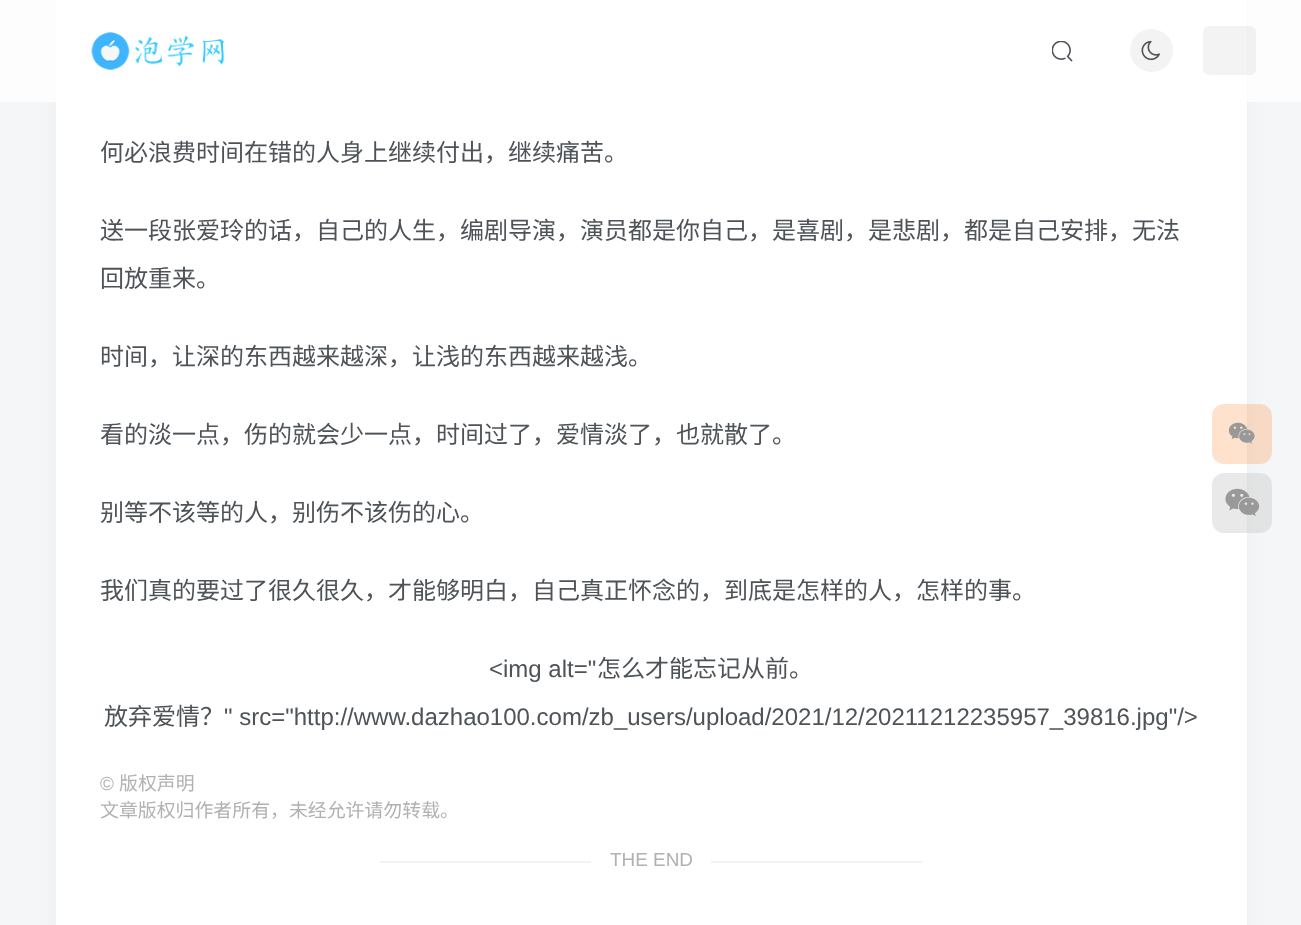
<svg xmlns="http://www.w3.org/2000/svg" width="1301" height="925">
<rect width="100%" height="100%" fill="#f5f6f7"/>
<rect x="56" y="-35" width="1191" height="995" rx="12" fill="#74747414" filter="blur(7.5px)"/>
<rect x="56" width="1191" height="925" fill="#fff"/>
<rect width="1301" height="102" fill="#ffffffcc"/>
<image x="91" y="32" width="133" height="38" href="media/1.png"/>
<image x="1052" y="41" width="21" height="21" href="media/2.png"/>
<circle cx="1151.5" cy="50.5" r="21.5" fill="#f3f3f3"/>
<image x="1141" y="40" width="19" height="21" href="media/3.png"/>
<rect x="1203" y="26" width="53" height="49" rx="6" fill="#8888881a"/>
<text x="100" y="161" style="font-family:Noto Sans CJK SC;font-size:24px;fill:#4e5358">何必浪费时间在错的人身上继续付出，继续痛苦。</text>
<text x="100" y="239" style="font-family:Noto Sans CJK SC;font-size:24px;fill:#4e5358">送一段张爱玲的话，自己的人生，编剧导演，演员都是你自己，是喜剧，是悲剧，都是自己安排，无法</text>
<text x="100" y="287" style="font-family:Noto Sans CJK SC;font-size:24px;fill:#4e5358">回放重来。</text>
<text x="100" y="365" style="font-family:Noto Sans CJK SC;font-size:24px;fill:#4e5358">时间，让深的东西越来越深，让浅的东西越来越浅。</text>
<text x="100" y="443" style="font-family:Noto Sans CJK SC;font-size:24px;fill:#4e5358">看的淡一点，伤的就会少一点，时间过了，爱情淡了，也就散了。</text>
<text x="100" y="521" style="font-family:Noto Sans CJK SC;font-size:24px;fill:#4e5358">别等不该等的人，别伤不该伤的心。</text>
<text x="100" y="599" style="font-family:Noto Sans CJK SC;font-size:24px;fill:#4e5358">我们真的要过了很久很久，才能够明白，自己真正怀念的，到底是怎样的人，怎样的事。</text>
<text x="489" y="677" style="font-family:Liberation Sans;font-size:24px;fill:#4e5358">&lt;img alt="</text>
<text x="597" y="677" style="font-family:Noto Sans CJK SC;font-size:24px;fill:#4e5358">怎么才能忘记从前。</text>
<text x="104" y="725" style="font-family:Noto Sans CJK SC;font-size:24px;fill:#4e5358">放弃爱情？</text>
<text x="224" y="725" style="font-family:Liberation Sans;font-size:24px;fill:#4e5358">" src="http://www.dazhao100.com/zb_users/upload/2021/12/20211212235957_39816.jpg"/&gt;</text>
<text x="100" y="790" style="font-family:Liberation Sans;font-size:18.9px;fill:#b1b1b1">©</text>
<text x="119" y="790" style="font-family:Noto Sans CJK SC;font-size:18.9px;fill:#b1b1b1">版权声明</text>
<text x="100" y="817" style="font-family:Noto Sans CJK SC;font-size:18.9px;fill:#b1b1b1">文章版权归作者所有，未经允许请勿转载。</text>
<rect x="380" y="861" width="211" height="2" fill="#f3f3f3"/>
<text x="610" y="866" style="font-family:Liberation Sans;font-size:18.9px;fill:#b1b1b1">THE END</text>
<rect x="711" y="861" width="212" height="2" fill="#f3f3f3"/>
<rect x="1212" y="404" width="60" height="60" rx="12" fill="#ff6f0633"/>
<image x="1228" y="422" width="27" height="22" href="media/4.png"/>
<rect x="1212" y="473" width="60" height="60" rx="12" fill="#c8c8c866"/>
<image x="1225" y="488" width="35" height="28" href="media/5.png"/>
</svg>
